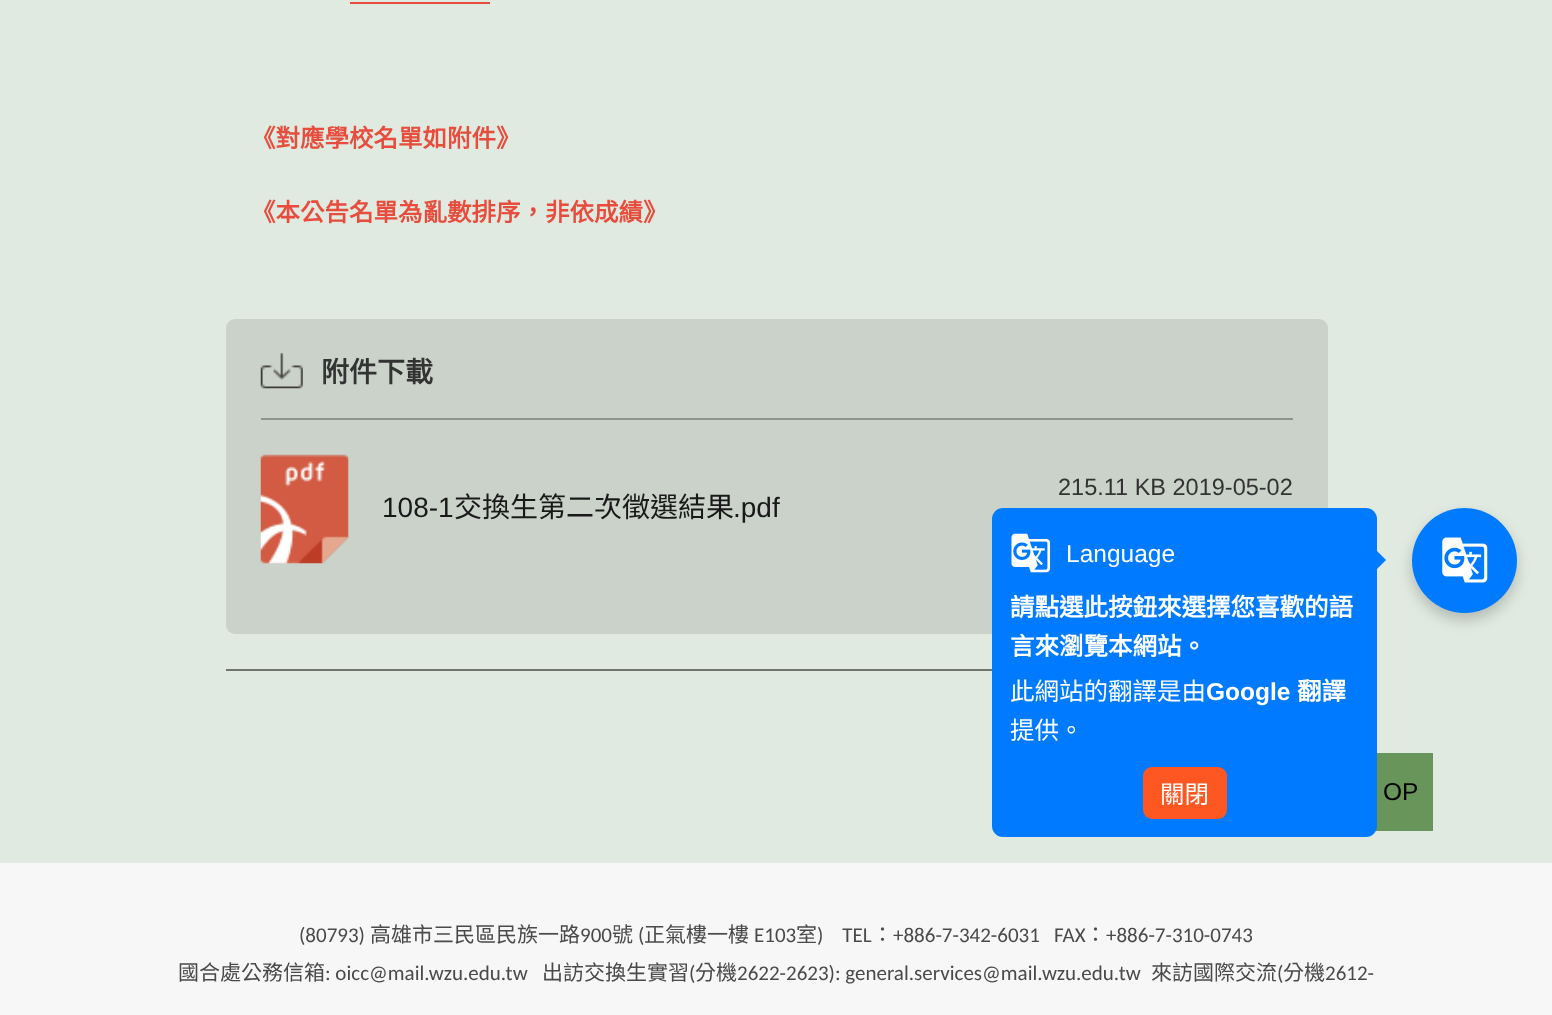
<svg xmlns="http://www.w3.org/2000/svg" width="1552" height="1015">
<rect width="100%" height="100%" fill="#e0eae0"/>
<rect x="350" y="2" width="140" height="2" fill="#e74c3c"/>
<text x="251" y="147" style="font-family:Noto Sans CJK TC;font-size:24.5px;font-weight:bold;fill:#e74c3c">《對應學校名單如附件》</text>
<text x="251" y="221" style="font-family:Noto Sans CJK TC;font-size:24.5px;font-weight:bold;fill:#e74c3c">《本公告名單為亂數排序，非依成績》</text>
<rect x="226" y="319" width="1102" height="315" rx="9" fill="#cad2ca"/>
<image x="260" y="353" width="43" height="36" href="media/1.png"/>
<text x="321" y="382" style="font-family:Noto Sans CJK TC;font-size:28px;font-weight:bold;fill:#333">附件下載</text>
<rect x="261" y="418" width="1032" height="2" fill="#8d938d"/>
<image x="260" y="454" width="89" height="110" href="media/2.png"/>
<text x="1058" y="495" style="font-family:Liberation Sans;font-size:23.5px;fill:#333">215.11 KB 2019-05-02</text>
<text x="382" y="517" style="font-family:Liberation Sans;font-size:28px;fill:#191919">108-1</text>
<text x="454" y="517" style="font-family:Noto Sans CJK TC;font-size:28px;fill:#191919">交換生第二次徵選結果</text>
<text x="733" y="517" style="font-family:Liberation Sans;font-size:28px;fill:#191919">.pdf</text>
<rect x="226" y="669" width="766" height="2" fill="#707570"/>
<rect y="863" width="1552" height="152" fill="#f7f7f7"/>
<rect x="1375" y="753" width="58" height="78" fill="#67955a"/>
<text x="1383" y="800" style="font-family:Liberation Sans;font-size:24.5px;fill:#000">OP</text>
<text x="299" y="942" style="font-family:Carlito;font-size:21px;fill:#4a4a4a">(80793)</text>
<text x="370" y="942" style="font-family:Noto Sans CJK TC;font-size:21px;fill:#4a4a4a">高雄市三民區民族一路</text>
<text x="580" y="942" style="font-family:Carlito;font-size:21px;fill:#4a4a4a">900</text>
<text x="612" y="942" style="font-family:Noto Sans CJK TC;font-size:21px;fill:#4a4a4a">號</text>
<text x="638" y="942" style="font-family:Carlito;font-size:21px;fill:#4a4a4a">(</text>
<text x="644" y="942" style="font-family:Noto Sans CJK TC;font-size:21px;fill:#4a4a4a">正氣樓一樓</text>
<text x="754" y="942" style="font-family:Carlito;font-size:21px;fill:#4a4a4a">E103</text>
<text x="796" y="942" style="font-family:Noto Sans CJK TC;font-size:21px;fill:#4a4a4a">室</text>
<text x="817" y="942" style="font-family:Carlito;font-size:21px;fill:#4a4a4a" xml:space="preserve">)    TEL</text>
<text x="872" y="942" style="font-family:Noto Sans CJK TC;font-size:21px;fill:#4a4a4a">：</text>
<text x="893" y="942" style="font-family:Carlito;font-size:21px;fill:#4a4a4a" xml:space="preserve">+886-7-342-6031   FAX</text>
<text x="1085" y="942" style="font-family:Noto Sans CJK TC;font-size:21px;fill:#4a4a4a">：</text>
<text x="1106" y="942" style="font-family:Carlito;font-size:21px;fill:#4a4a4a">+886-7-310-0743</text>
<text x="178" y="980" style="font-family:Noto Sans CJK TC;font-size:21px;fill:#4a4a4a">國合處公務信箱</text>
<text x="325" y="980" style="font-family:Carlito;font-size:21px;fill:#4a4a4a">: oicc@mail.wzu.edu.tw</text>
<text x="542" y="980" style="font-family:Noto Sans CJK TC;font-size:21px;fill:#4a4a4a">出訪交換生實習</text>
<text x="689" y="980" style="font-family:Carlito;font-size:21px;fill:#4a4a4a">(</text>
<text x="695" y="980" style="font-family:Noto Sans CJK TC;font-size:21px;fill:#4a4a4a">分機</text>
<text x="737" y="980" style="font-family:Carlito;font-size:21px;fill:#4a4a4a">2622-2623): general.services@mail.wzu.edu.tw</text>
<text x="1151" y="980" style="font-family:Noto Sans CJK TC;font-size:21px;fill:#4a4a4a">來訪國際交流</text>
<text x="1277" y="980" style="font-family:Carlito;font-size:21px;fill:#4a4a4a">(</text>
<text x="1283" y="980" style="font-family:Noto Sans CJK TC;font-size:21px;fill:#4a4a4a">分機</text>
<text x="1325" y="980" style="font-family:Carlito;font-size:21px;fill:#4a4a4a">2612-</text>
<rect x="1412" y="515" width="105" height="105" rx="52.5" fill="#00000033" filter="blur(7px)"/>
<circle cx="1464.5" cy="560.5" r="52.5" fill="#007bff"/>
<image x="1442" y="537" width="46" height="46" href="media/3.png"/>
<rect x="992" y="508" width="385" height="329" rx="11" fill="#007bff"/>
<image x="1011" y="533" width="40" height="40" href="media/4.png"/>
<text x="1066" y="562" style="font-family:Liberation Sans;font-size:24.5px;fill:#fff">Language</text>
<path d="M1377 569v-18l9 9z" fill="#007bff"/>
<text x="1010" y="616" style="font-family:Noto Sans CJK TC;font-size:24.5px;font-weight:bold;fill:#fff">請點選此按鈕來選擇您喜歡的語</text>
<text x="1010" y="655" style="font-family:Noto Sans CJK TC;font-size:24.5px;font-weight:bold;fill:#fff">言來瀏覽本網站。</text>
<text x="1010" y="700" style="font-family:Noto Sans CJK TC;font-size:24.5px;fill:#fff">此網站的翻譯是由</text>
<text x="1206" y="700" style="font-family:Liberation Sans;font-size:24.5px;font-weight:bold;fill:#fff">Google</text>
<text x="1297" y="700" style="font-family:Noto Sans CJK TC;font-size:24.5px;font-weight:bold;fill:#fff">翻譯</text>
<text x="1010" y="739" style="font-family:Noto Sans CJK TC;font-size:24.5px;fill:#fff">提供。</text>
<rect x="1143" y="767" width="84" height="52" rx="9" fill="#ff5722"/>
<text x="1160" y="803" style="font-family:Noto Sans CJK TC;font-size:24.5px;fill:#fff">關閉</text>
</svg>
